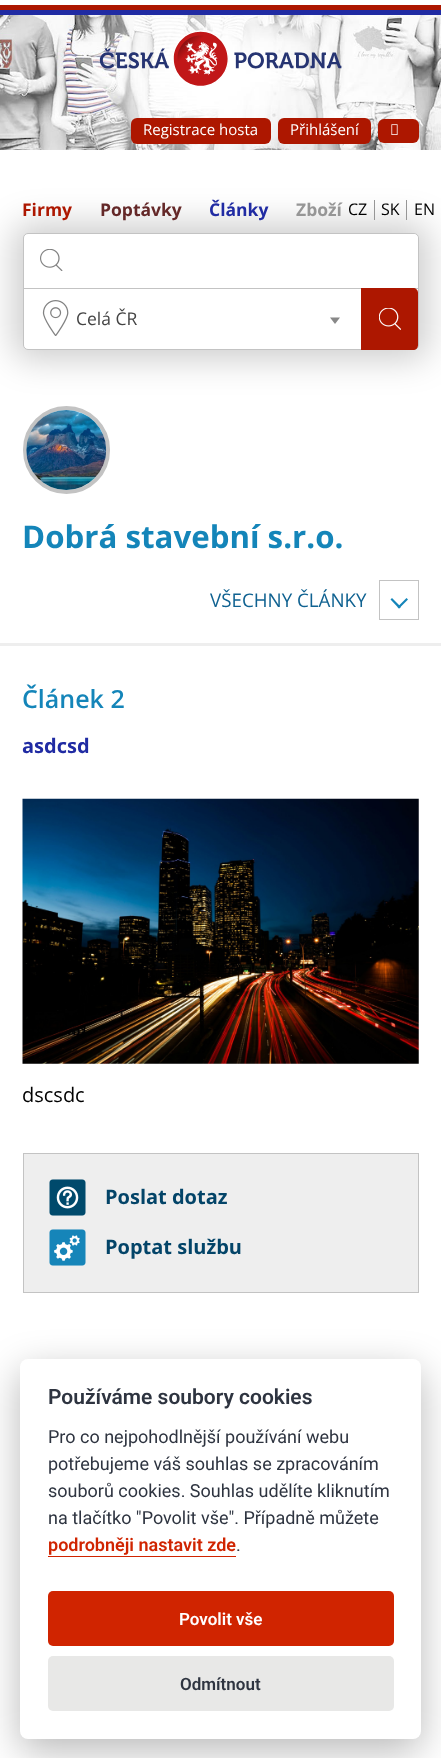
<svg xmlns="http://www.w3.org/2000/svg" width="441" height="1758">
<rect width="100%" height="100%" fill="#fff"/>
<image x="0" y="15" width="441" height="135" href="media/1.png"/>
<rect y="5" width="441" height="5" fill="#ad1700"/>
<rect y="10" width="441" height="5" fill="#202ba3"/>
<image x="99" y="30" width="243" height="57" href="media/2.png"/>
<rect x="131" y="118" width="140" height="26" rx="6" fill="#ad1700"/>
<text x="143" y="135" style="font-family:Open Sans;font-size:15px;fill:#fff">Registrace hosta</text>
<rect x="278" y="118" width="93" height="26" rx="6" fill="#ad1700"/>
<text x="290" y="135" style="font-family:Open Sans;font-size:15px;fill:#fff">Přihlášení</text>
<rect x="378" y="119" width="41" height="24" rx="6" fill="#ad1700"/>
<image x="391" y="124" width="7" height="11" href="media/3.png"/>
<rect x="14" y="224" width="414" height="135" rx="14" fill="#00000033" filter="blur(17px)"/>
<text x="22" y="216" style="font-family:Open Sans;font-size:17.5px;font-weight:bold;fill:#ad1700">Firmy</text>
<text x="100" y="216" style="font-family:Open Sans;font-size:17.5px;font-weight:bold;fill:#642828">Poptávky</text>
<text x="209" y="216" style="font-family:Open Sans;font-size:17.5px;font-weight:bold;fill:#202ba3">Články</text>
<text x="296" y="216" style="font-family:Open Sans;font-size:17.5px;font-weight:bold;fill:#969696">Zboží</text>
<text x="348" y="215" style="font-family:Open Sans;font-size:16px;fill:#000">CZ</text>
<rect x="374" y="200" width="1" height="20" fill="#969696"/>
<text x="381" y="215" style="font-family:Open Sans;font-size:16px;fill:#000">SK</text>
<rect x="406" y="200" width="1" height="20" fill="#969696"/>
<text x="414" y="215" style="font-family:Open Sans;font-size:16px;fill:#000">EN</text>
<rect x="23.5" y="233.5" width="395" height="116" rx="4.5" fill="#fff" stroke="#c3c3c3"/>
<rect x="24" y="288" width="394" height="1" fill="#c3c3c3"/>
<image x="40" y="249" width="23" height="22" href="media/4.png"/>
<rect x="79" y="234" width="339" height="54" rx="5" fill="#fff"/>
<image x="42" y="300" width="27" height="36" href="media/5.png"/>
<text x="76" y="325" style="font-family:Open Sans;font-size:17.5px;fill:#444">Celá ČR</text>
<path d="M330 317.5h10l-5 6.5z" fill="#888"/>
<path d="M361 288h52c3 0 5 2 5 5v52c0 3-2 5-5 5h-52z" fill="#ad1700"/>
<image x="379" y="308" width="22" height="22" href="media/6.png"/>
<rect x="25" y="408" width="83" height="84" rx="41.5" fill="none" stroke="#c3c3c3" stroke-width="4"/>
<image x="26" y="410" width="81" height="80" href="media/7.png"/>
<text x="22" y="548" style="font-family:Open Sans;font-size:31.25px;font-weight:bold;fill:#1485b9">Dobrá stavební s.r.o.</text>
<text x="210" y="607" style="font-family:Open Sans;font-size:18.75px;fill:#106291">VŠECHNY ČLÁNKY</text>
<rect x="379.5" y="580.5" width="39" height="39" fill="none" stroke="#c3c3c3"/>
<path d="M406.5 598l1.5 1.5l-9 9l-1.5-1.5z" fill="#1485b9"/>
<path d="M392 598l9 9l-2 1.5l-8.5-9z" fill="#1485b9"/>
<rect y="643" width="441" height="3" fill="#eee"/>
<text x="22" y="708" style="font-family:Open Sans;font-size:25px;font-weight:600;fill:#1485b9">Článek 2</text>
<text x="22" y="753" style="font-family:Open Sans;font-size:20px;font-weight:bold;fill:#202ba3">asdcsd</text>
<image x="22" y="798" width="397" height="266" href="media/8.png"/>
<text x="22" y="1102" style="font-family:Open Sans;font-size:20px;fill:#000">dscsdc</text>
<rect x="23.5" y="1153.5" width="395" height="139" fill="#eee" stroke="#c3c3c3"/>
<image x="49" y="1179" width="37" height="37" href="media/9.png"/>
<text x="105" y="1204" style="font-family:Open Sans;font-size:20px;font-weight:bold;fill:#034468">Poslat dotaz</text>
<image x="49" y="1229" width="37" height="37" href="media/10.png"/>
<text x="105" y="1254" style="font-family:Open Sans;font-size:20px;font-weight:bold;fill:#034468">Poptat službu</text>
<rect x="20" y="1371" width="401" height="380" rx="8" fill="#02020347" filter="blur(19px)"/>
<rect x="20" y="1359" width="401" height="380" rx="8" fill="#fff"/>
<text x="48" y="1404" style="font-family:Roboto;font-size:21px;font-weight:600;fill:#2e3440">Používáme soubory cookies</text>
<text x="48" y="1443" style="font-family:Roboto;font-size:18px;fill:#2e3440">Pro co nejpohodlnější používání webu</text>
<text x="48" y="1470" style="font-family:Roboto;font-size:18px;fill:#2e3440">potřebujeme váš souhlas se zpracováním</text>
<text x="48" y="1497" style="font-family:Roboto;font-size:18px;fill:#2e3440">souborů cookies. Souhlas udělíte kliknutím</text>
<text x="48" y="1524" style="font-family:Roboto;font-size:18px;fill:#2e3440">na tlačítko "Povolit vše". Případně můžete</text>
<text x="48" y="1551" style="font-family:Roboto;font-size:18px;font-weight:600;fill:#d02400">podrobněji nastavit zde</text>
<rect x="48" y="1556" width="188" height="1" fill="#d02400"/>
<text x="236" y="1551" style="font-family:Roboto;font-size:18px;fill:#2e3440">.</text>
<rect x="48" y="1591" width="346" height="55" rx="5" fill="#d02400"/>
<text x="179" y="1625" style="font-family:Roboto;font-size:17px;font-weight:600;fill:#fff">Povolit vše</text>
<rect x="48" y="1656" width="346" height="55" rx="5" fill="#e8e8e7"/>
<text x="180" y="1690" style="font-family:Roboto;font-size:17px;font-weight:600;fill:#2e3440">Odmítnout</text>
</svg>
